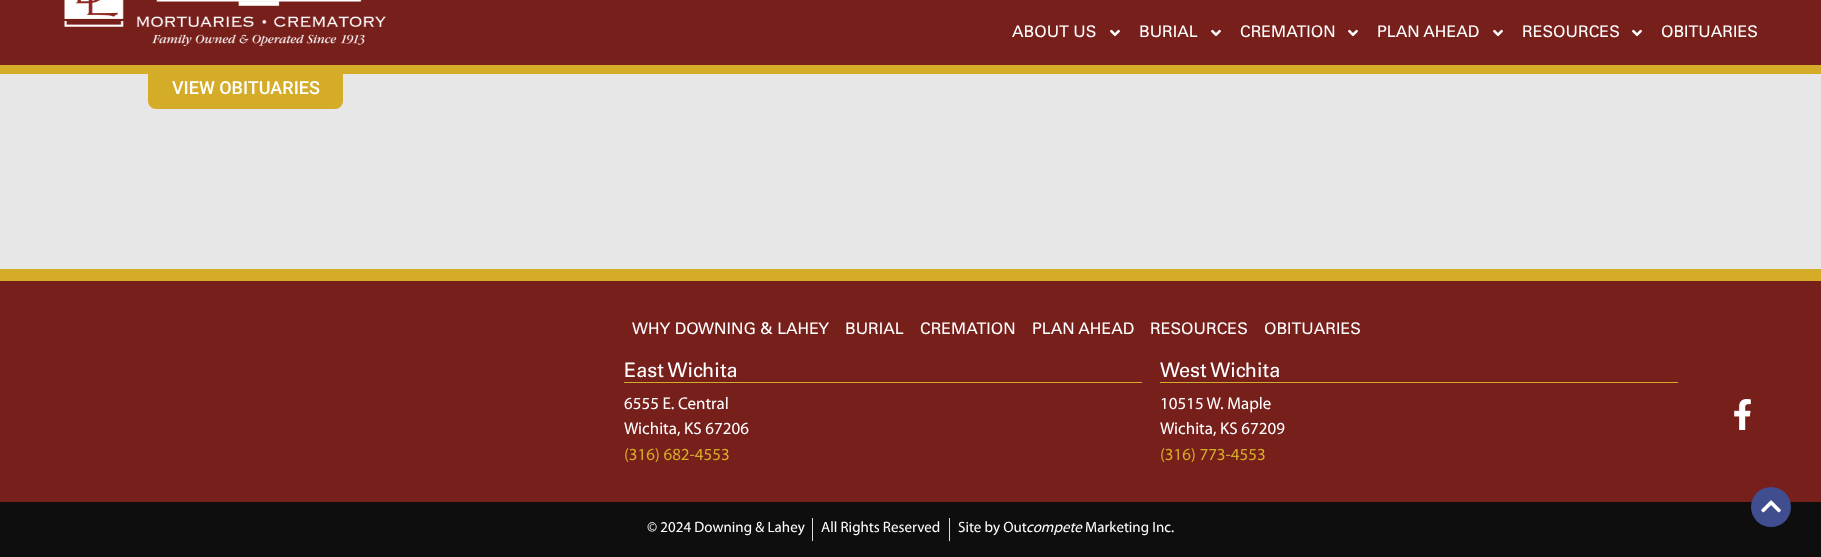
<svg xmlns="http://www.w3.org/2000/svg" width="1821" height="557">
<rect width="100%" height="100%" fill="#e7e7e7"/>
<rect width="1821" height="65" fill="#771f1b"/>
<rect y="65" width="1821" height="9" fill="#d5ac28"/>
<image x="64" y="0" width="322" height="46" href="media/1.png"/>
<text x="1012" y="37" style="font-family:Univers;font-size:16px;fill:#fff">ABOUT US</text>
<image x="1110" y="29" width="10" height="8" href="media/2.png"/>
<text x="1139" y="37" style="font-family:Univers;font-size:16px;fill:#fff">BURIAL</text>
<image x="1211" y="29" width="10" height="8" href="media/2.png"/>
<text x="1240" y="37" style="font-family:Univers;font-size:16px;fill:#fff">CREMATION</text>
<image x="1348" y="29" width="10" height="8" href="media/2.png"/>
<text x="1377" y="37" style="font-family:Univers;font-size:16px;fill:#fff">PLAN AHEAD</text>
<image x="1493" y="29" width="10" height="8" href="media/2.png"/>
<text x="1522" y="37" style="font-family:Univers;font-size:16px;fill:#fff">RESOURCES</text>
<image x="1632" y="29" width="10" height="8" href="media/2.png"/>
<text x="1661" y="37" style="font-family:Univers;font-size:16px;fill:#fff">OBITUARIES</text>
<rect x="148" y="67" width="195" height="42" rx="8" fill="#d5ac28"/>
<text x="172" y="94" style="font-family:Roboto;font-size:18px;font-weight:500;fill:#fff">VIEW OBITUARIES</text>
<rect y="281" width="1821" height="221" fill="#771f1b"/>
<rect y="269" width="1821" height="12" fill="#d5ac28"/>
<text x="632" y="334" style="font-family:Univers;font-size:16px;fill:#fff">WHY DOWNING &amp; LAHEY</text>
<text x="845" y="334" style="font-family:Univers;font-size:16px;fill:#fff">BURIAL</text>
<text x="920" y="334" style="font-family:Univers;font-size:16px;fill:#fff">CREMATION</text>
<text x="1032" y="334" style="font-family:Univers;font-size:16px;fill:#fff">PLAN AHEAD</text>
<text x="1150" y="334" style="font-family:Univers;font-size:16px;fill:#fff">RESOURCES</text>
<text x="1264" y="334" style="font-family:Univers;font-size:16px;fill:#fff">OBITUARIES</text>
<rect x="624" y="382" width="518" height="1" fill="#d5ac28"/>
<text x="624" y="377" style="font-family:Univers;font-size:20px;fill:#fff">East Wichita</text>
<text x="624" y="409" style="font-family:Myriad;font-size:17px;fill:#fff">6555 E. Central</text>
<text x="624" y="434" style="font-family:Myriad;font-size:17px;fill:#fff">Wichita, KS 67206</text>
<text x="624" y="460" style="font-family:Myriad;font-size:17px;fill:#d5ac28">(316) 682-4553</text>
<rect x="1160" y="382" width="518" height="1" fill="#d5ac28"/>
<text x="1160" y="377" style="font-family:Univers;font-size:20px;fill:#fff">West Wichita</text>
<text x="1160" y="409" style="font-family:Myriad;font-size:17px;fill:#fff">10515 W. Maple</text>
<text x="1160" y="434" style="font-family:Myriad;font-size:17px;fill:#fff">Wichita, KS 67209</text>
<text x="1160" y="460" style="font-family:Myriad;font-size:17px;fill:#d5ac28">(316) 773-4553</text>
<image x="1734" y="399" width="17" height="31" href="media/3.png"/>
<rect y="502" width="1821" height="55" fill="#0e0e0e"/>
<text x="647" y="532" style="font-family:Myriad;font-size:15px;fill:#fff">© 2024 Downing &amp; Lahey</text>
<rect x="812" y="518" width="1" height="23" fill="#ddd"/>
<text x="821" y="532" style="font-family:Myriad;font-size:15px;fill:#fff">All Rights Reserved</text>
<rect x="949" y="518" width="1" height="23" fill="#ddd"/>
<text x="958" y="532" style="font-family:Myriad;font-size:15px;fill:#fff">Site by Out</text>
<text x="1026" y="532" style="font-family:Myriad;font-size:15px;font-style:italic;fill:#fff">compete</text>
<text x="1085" y="532" style="font-family:Myriad;font-size:15px;fill:#fff">Marketing Inc.</text>
<circle cx="1771" cy="507" r="20" fill="#404e8f"/>
<image x="1761" y="500" width="20" height="13" href="media/4.png"/>
</svg>
